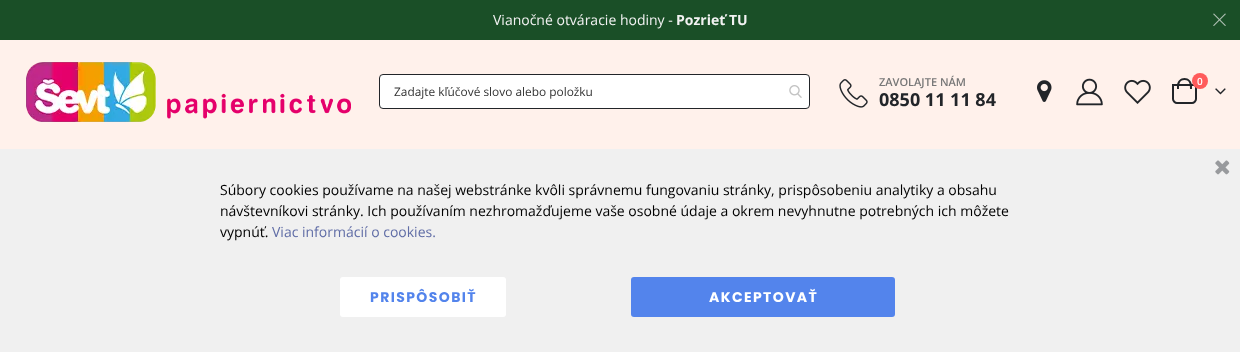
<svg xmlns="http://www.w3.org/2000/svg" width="1240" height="352">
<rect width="100%" height="100%" fill="#1a4f27"/>
<text x="493" y="25" style="font-family:Open Sans;font-size:14px;fill:#f2f2f2">Vianočné otváracie hodiny -</text>
<text x="676" y="25" style="font-family:Open Sans;font-size:14px;font-weight:bold;fill:#f2f2f2">Pozrieť TU</text>
<path d="M1214 13.5l12 12l-1 .5l-12-12z" fill="#b1c1b5"/>
<path d="M1225 13.5l1 .5l-12 12l-1-.5z" fill="#b1c1b5"/>
<rect y="40" width="1240" height="109" fill="#fff1eb"/>
<image x="26" y="62" width="325" height="60" href="media/1.png"/>
<rect x="379.5" y="74.5" width="430" height="34" rx="3.5" fill="#fff" stroke="#222529"/>
<text x="394" y="96" style="font-family:Open Sans;font-size:11.9px;fill:#333">Zadajte kľúčové slovo alebo položku</text>
<image x="789" y="85" width="13" height="13" href="media/2.png"/>
<image x="839" y="79" width="29" height="29" href="media/3.png"/>
<text x="879" y="86" style="font-family:Open Sans;font-size:11px;font-weight:600;fill:#777">ZAVOLAJTE NÁM</text>
<text x="879" y="106" style="font-family:Open Sans;font-size:18px;font-weight:bold;fill:#222529">0850 11 11 84</text>
<image x="1037" y="80" width="15" height="22" href="media/4.png"/>
<image x="1076" y="78" width="27" height="28" href="media/5.png"/>
<image x="1124" y="79" width="27" height="25" href="media/6.png"/>
<path d="M1173 85h23v14c0 2-2 4-4 4h-15c-2 0-4-2-4-4z" fill="none" stroke="#222529" stroke-width="2"/>
<path d="M1184.5 78c4 0 7.5 3.5 7.5 7.5v3.5h-15v-3.5c0-4 3.5-7.5 7.5-7.5zm0 2c5.5 0 5.5 5 5.5 9h-11c0-4 0-9 5.5-9z" fill="#222529" fill-rule="evenodd"/>
<circle cx="1200" cy="81" r="8" fill="#ff5b5b"/>
<text x="1197" y="85" style="font-family:Open Sans;font-size:10px;font-weight:600;fill:#fff">0</text>
<image x="1215" y="88" width="11" height="7" href="media/7.png"/>
<rect y="149" width="1240" height="203" fill="#f0f0f0"/>
<image x="1215" y="160" width="15" height="15" href="media/8.png"/>
<text x="220" y="195" style="font-family:Open Sans;font-size:14px;fill:#000">Súbory cookies používame na našej webstránke kvôli správnemu fungovaniu stránky, prispôsobeniu analytiky a obsahu</text>
<text x="220" y="216" style="font-family:Open Sans;font-size:14px;fill:#000">návštevníkovi stránky. Ich používaním nezhromažďujeme vaše osobné údaje a okrem nevyhnutne potrebných ich môžete</text>
<text x="220" y="237" style="font-family:Open Sans;font-size:14px;fill:#000">vypnúť.</text>
<text x="272" y="237" style="font-family:Open Sans;font-size:14px;fill:#606da6">Viac informácií o cookies.</text>
<rect x="340" y="277" width="166" height="40" rx="3" fill="#fff"/>
<text x="370" y="302" style="font-family:Poppins;font-size:14px;font-weight:bold;letter-spacing:1.4px;fill:#5384ec">PRISPÔSOBIŤ</text>
<rect x="631" y="277" width="264" height="40" rx="3" fill="#5384ec"/>
<text x="709" y="302" style="font-family:Poppins;font-size:14px;font-weight:bold;letter-spacing:1.4px;fill:#fff">AKCEPTOVAŤ</text>
</svg>
